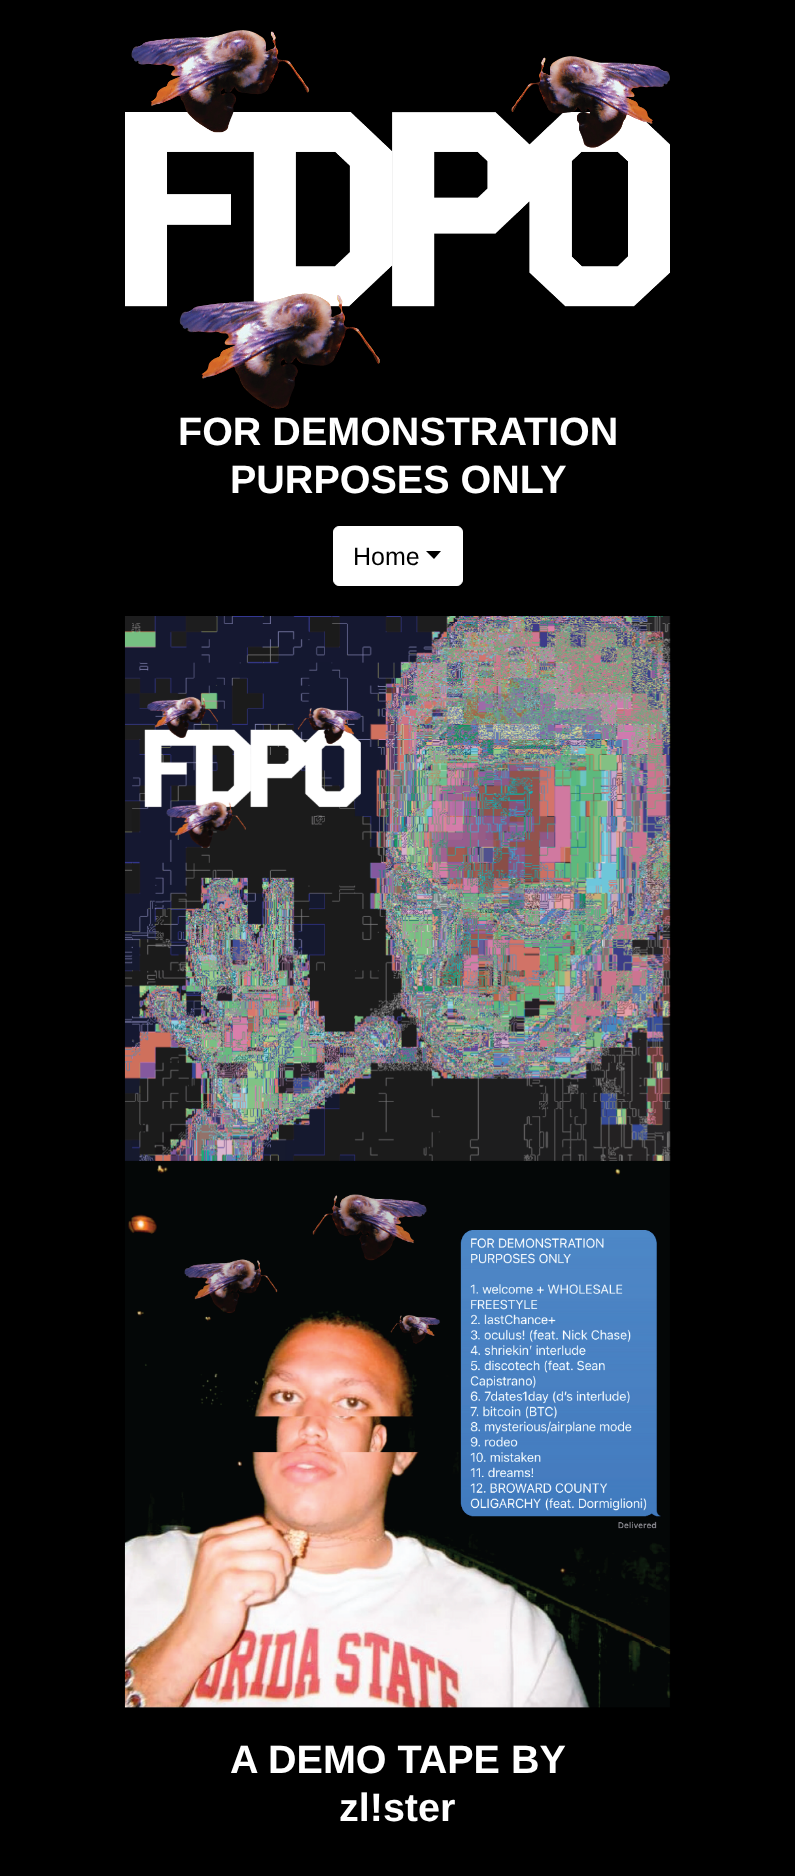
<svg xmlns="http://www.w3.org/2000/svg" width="795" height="1876">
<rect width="100%" height="100%" fill="#000"/>
<image x="125" y="30" width="545" height="379" href="media/1.png"/>
<text x="178" y="445" style="font-family:Liberation Sans;font-size:39.5px;font-weight:bold;fill:#fff">FOR DEMONSTRATION</text>
<text x="230" y="493" style="font-family:Liberation Sans;font-size:39.5px;font-weight:bold;fill:#fff">PURPOSES ONLY</text>
<rect x="333.5" y="526.5" width="129" height="59" rx="5.5" fill="#fff" stroke="#fff"/>
<text x="353" y="565" style="font-family:Liberation Sans;font-size:25px;fill:#000">Home</text>
<path d="M426 551h15l-7 8z" fill="#000"/>
<image x="124" y="616" width="547" height="546" href="media/2.png"/>
<rect x="125" y="1161" width="545" height="1" fill="#000"/>
<image x="124" y="1161" width="547" height="547" href="media/3.png"/>
<text x="230" y="1773" style="font-family:Liberation Sans;font-size:39.5px;font-weight:bold;fill:#fff">A DEMO TAPE BY</text>
<text x="339" y="1821" style="font-family:Liberation Sans;font-size:39.5px;font-weight:bold;fill:#fff">zl!ster</text>
</svg>
